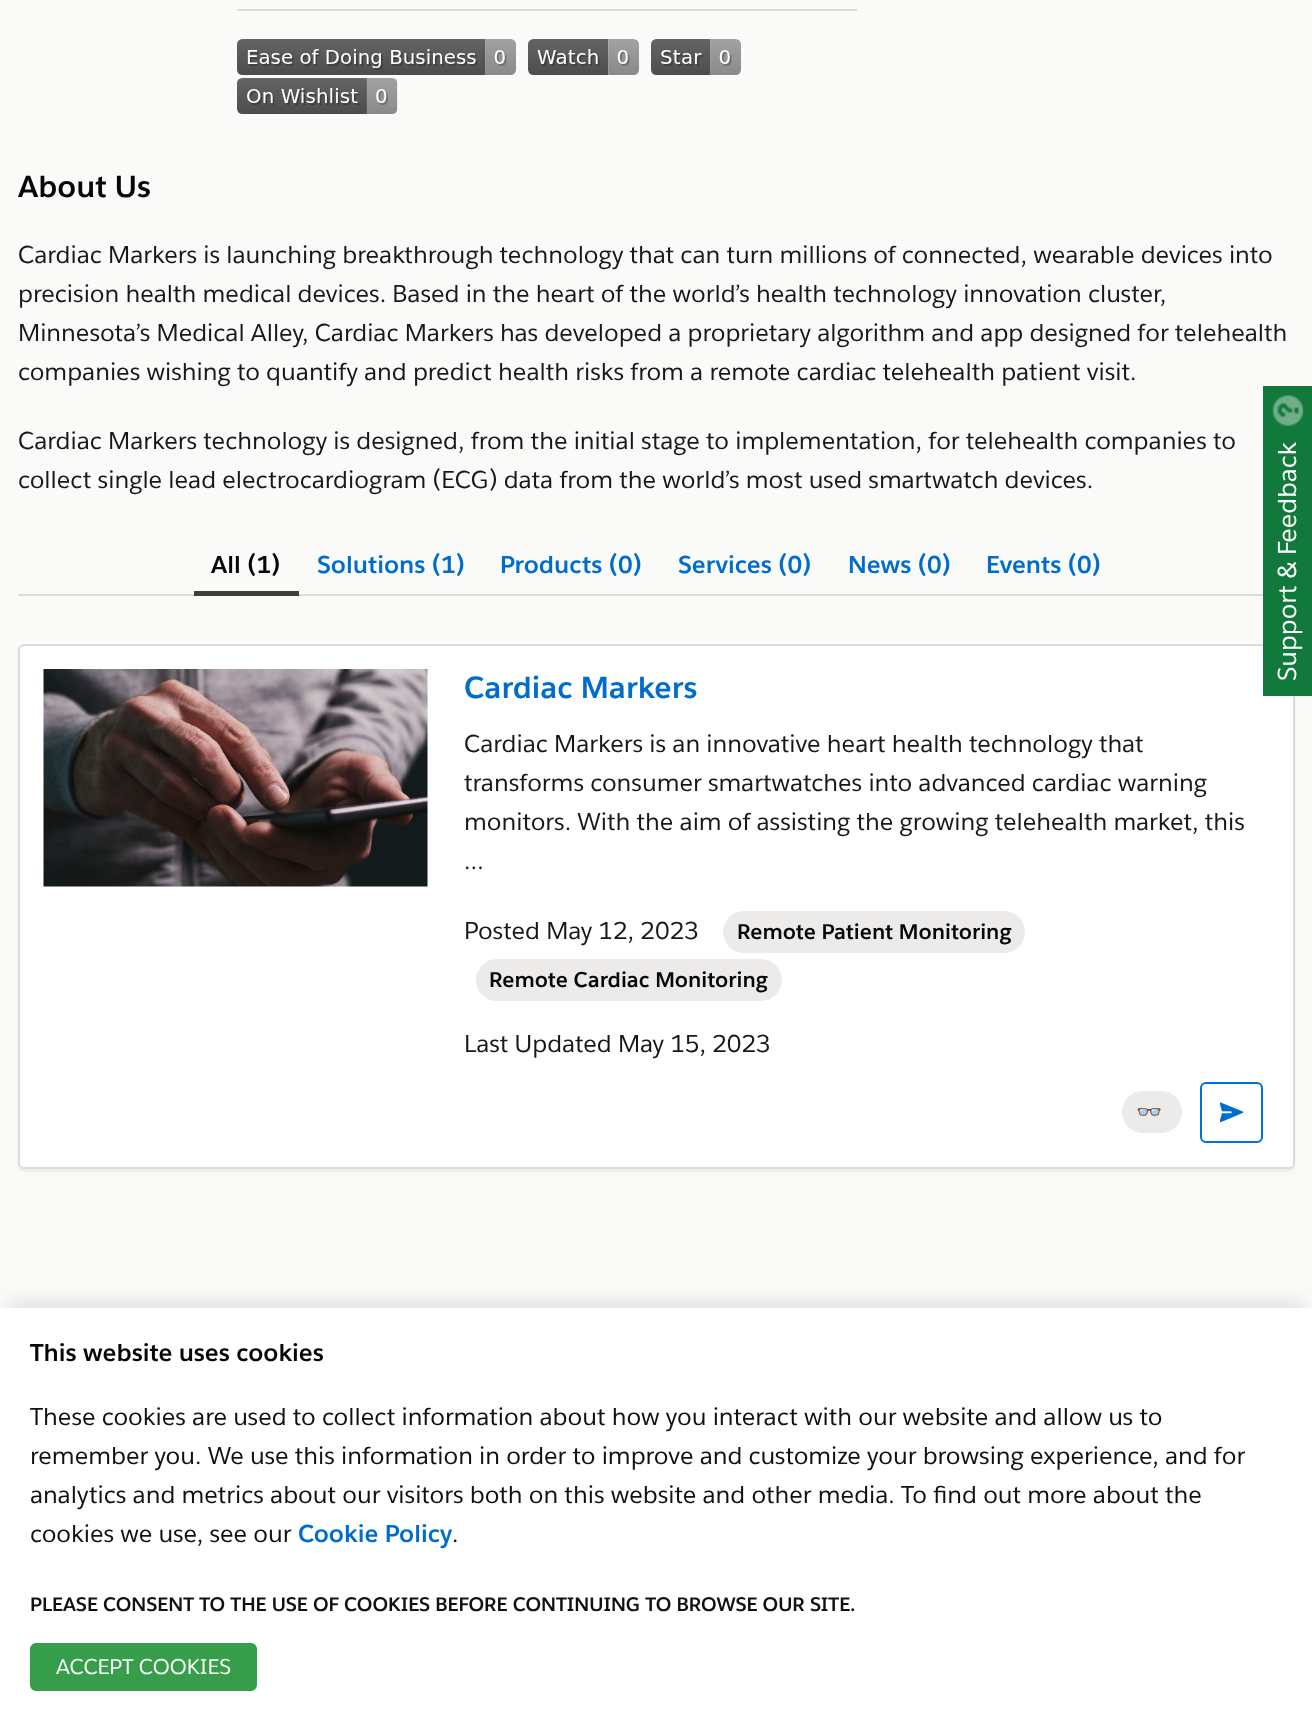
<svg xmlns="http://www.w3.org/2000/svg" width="1312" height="1720">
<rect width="100%" height="100%" fill="#fafaf9"/>
<rect x="237" y="9" width="620" height="2" fill="#dddbda"/>
<image x="237" y="39" width="279" height="36" href="media/1.png"/>
<image x="528" y="39" width="111" height="36" href="media/2.png"/>
<image x="651" y="39" width="90" height="36" href="media/3.png"/>
<image x="237" y="78" width="161" height="36" href="media/4.png"/>
<text x="18" y="197" style="font-family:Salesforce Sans;font-size:30px;font-weight:bold;fill:#080707">About Us</text>
<text x="18" y="263" style="font-family:Salesforce Sans;font-size:24px;fill:#181818">Cardiac Markers is launching breakthrough technology that can turn millions of connected, wearable devices into</text>
<text x="18" y="302" style="font-family:Salesforce Sans;font-size:24px;fill:#181818">precision health medical devices. Based in the heart of the world’s health technology innovation cluster,</text>
<text x="18" y="341" style="font-family:Salesforce Sans;font-size:24px;fill:#181818">Minnesota’s Medical Alley, Cardiac Markers has developed a proprietary algorithm and app designed for telehealth</text>
<text x="18" y="380" style="font-family:Salesforce Sans;font-size:24px;fill:#181818">companies wishing to quantify and predict health risks from a remote cardiac telehealth patient visit.</text>
<text x="18" y="449" style="font-family:Salesforce Sans;font-size:24px;fill:#181818">Cardiac Markers technology is designed, from the initial stage to implementation, for telehealth companies to</text>
<text x="18" y="488" style="font-family:Salesforce Sans;font-size:24px;fill:#181818">collect single lead electrocardiogram (ECG) data from the world’s most used smartwatch devices.</text>
<rect x="18" y="594" width="1245" height="2" fill="#dddbda"/>
<text x="211" y="573" style="font-family:Salesforce Sans;font-size:24px;font-weight:bold;fill:#080707">All (1)</text>
<rect x="194" y="591" width="105" height="5" fill="#3e3e3c"/>
<text x="317" y="573" style="font-family:Salesforce Sans;font-size:24px;font-weight:bold;fill:#006dcc">Solutions (1)</text>
<text x="500" y="573" style="font-family:Salesforce Sans;font-size:24px;font-weight:bold;fill:#006dcc">Products (0)</text>
<text x="678" y="573" style="font-family:Salesforce Sans;font-size:24px;font-weight:bold;fill:#006dcc">Services (0)</text>
<text x="848" y="573" style="font-family:Salesforce Sans;font-size:24px;font-weight:bold;fill:#006dcc">News (0)</text>
<text x="986" y="573" style="font-family:Salesforce Sans;font-size:24px;font-weight:bold;fill:#006dcc">Events (0)</text>
<rect x="18" y="647" width="1277" height="525" rx="6" fill="#0000000d" filter="blur(1.5px)"/>
<rect x="19" y="645" width="1275" height="523" rx="5" fill="#fff" stroke="#dddbda" stroke-width="2"/>
<image x="43" y="669" width="385" height="218" href="media/5.png"/>
<text x="464" y="698" style="font-family:Salesforce Sans;font-size:30px;font-weight:bold;fill:#006dcc">Cardiac Markers</text>
<text x="464" y="752" style="font-family:Salesforce Sans;font-size:24px;fill:#181818">Cardiac Markers is an innovative heart health technology that</text>
<text x="464" y="791" style="font-family:Salesforce Sans;font-size:24px;fill:#181818">transforms consumer smartwatches into advanced cardiac warning</text>
<text x="464" y="830" style="font-family:Salesforce Sans;font-size:24px;fill:#181818">monitors. With the aim of assisting the growing telehealth market, this</text>
<text x="464" y="869" style="font-family:Salesforce Sans;font-size:24px;fill:#181818">…</text>
<text x="464" y="939" style="font-family:Salesforce Sans;font-size:24px;fill:#181818">Posted May 12, 2023</text>
<rect x="723" y="911" width="302" height="42" rx="21" fill="#ecebea"/>
<text x="737" y="939" style="font-family:Salesforce Sans;font-size:21px;font-weight:bold;fill:#080707">Remote Patient Monitoring</text>
<rect x="476" y="959" width="306" height="42" rx="21" fill="#ecebea"/>
<text x="489" y="987" style="font-family:Salesforce Sans;font-size:21px;font-weight:bold;fill:#080707">Remote Cardiac Monitoring</text>
<text x="464" y="1052" style="font-family:Salesforce Sans;font-size:24px;fill:#181818">Last Updated May 15, 2023</text>
<rect x="1122" y="1091" width="60" height="42" rx="21" fill="#ecebea"/>
<text x="1136" y="1119" style="font-family:Noto Color Emoji;font-size:21px;font-weight:bold;fill:#080707">👓</text>
<rect x="1201" y="1083" width="61" height="59" rx="5" fill="none" stroke="#0070d2" stroke-width="2"/>
<image x="1220" y="1102" width="24" height="21" href="media/6.png"/>
<rect x="1263" y="386" width="49" height="310" fill="#11793c"/>
<image x="1272" y="395" width="32" height="31" href="media/7.png"/>
<text x="1296" y="681" transform="rotate(-90 1296 681)" style="font-family:Salesforce Sans;font-size:25.5px;fill:#fff">Support &amp; Feedback</text>
<rect x="9" y="1304" width="1295" height="394" fill="#0000001f" filter="blur(10.5px)"/>
<rect y="1308" width="1312" height="412" fill="#fff"/>
<text x="30" y="1361" style="font-family:Salesforce Sans;font-size:24px;font-weight:bold;fill:#080707">This website uses cookies</text>
<text x="30" y="1425" style="font-family:Salesforce Sans;font-size:24px;fill:#111">These cookies are used to collect information about how you interact with our website and allow us to</text>
<text x="30" y="1464" style="font-family:Salesforce Sans;font-size:24px;fill:#111">remember you. We use this information in order to improve and customize your browsing experience, and for</text>
<text x="30" y="1503" style="font-family:Salesforce Sans;font-size:24px;fill:#111">analytics and metrics about our visitors both on this website and other media. To find out more about the</text>
<text x="30" y="1542" style="font-family:Salesforce Sans;font-size:24px;fill:#111">cookies we use, see our</text>
<text x="298" y="1542" style="font-family:Salesforce Sans;font-size:24px;font-weight:bold;fill:#006dcc">Cookie Policy</text>
<text x="452" y="1542" style="font-family:Salesforce Sans;font-size:24px;fill:#111">.</text>
<text x="30" y="1611" style="font-family:Salesforce Sans;font-size:19.2px;font-weight:bold;fill:#111">PLEASE CONSENT TO THE USE OF COOKIES BEFORE CONTINUING TO BROWSE OUR SITE.</text>
<rect x="31" y="1644" width="225" height="46" rx="5" fill="#369e4b" stroke="#369e4b" stroke-width="2"/>
<text x="56" y="1674" style="font-family:Salesforce Sans;font-size:21px;fill:#fff">ACCEPT COOKIES</text>
</svg>
